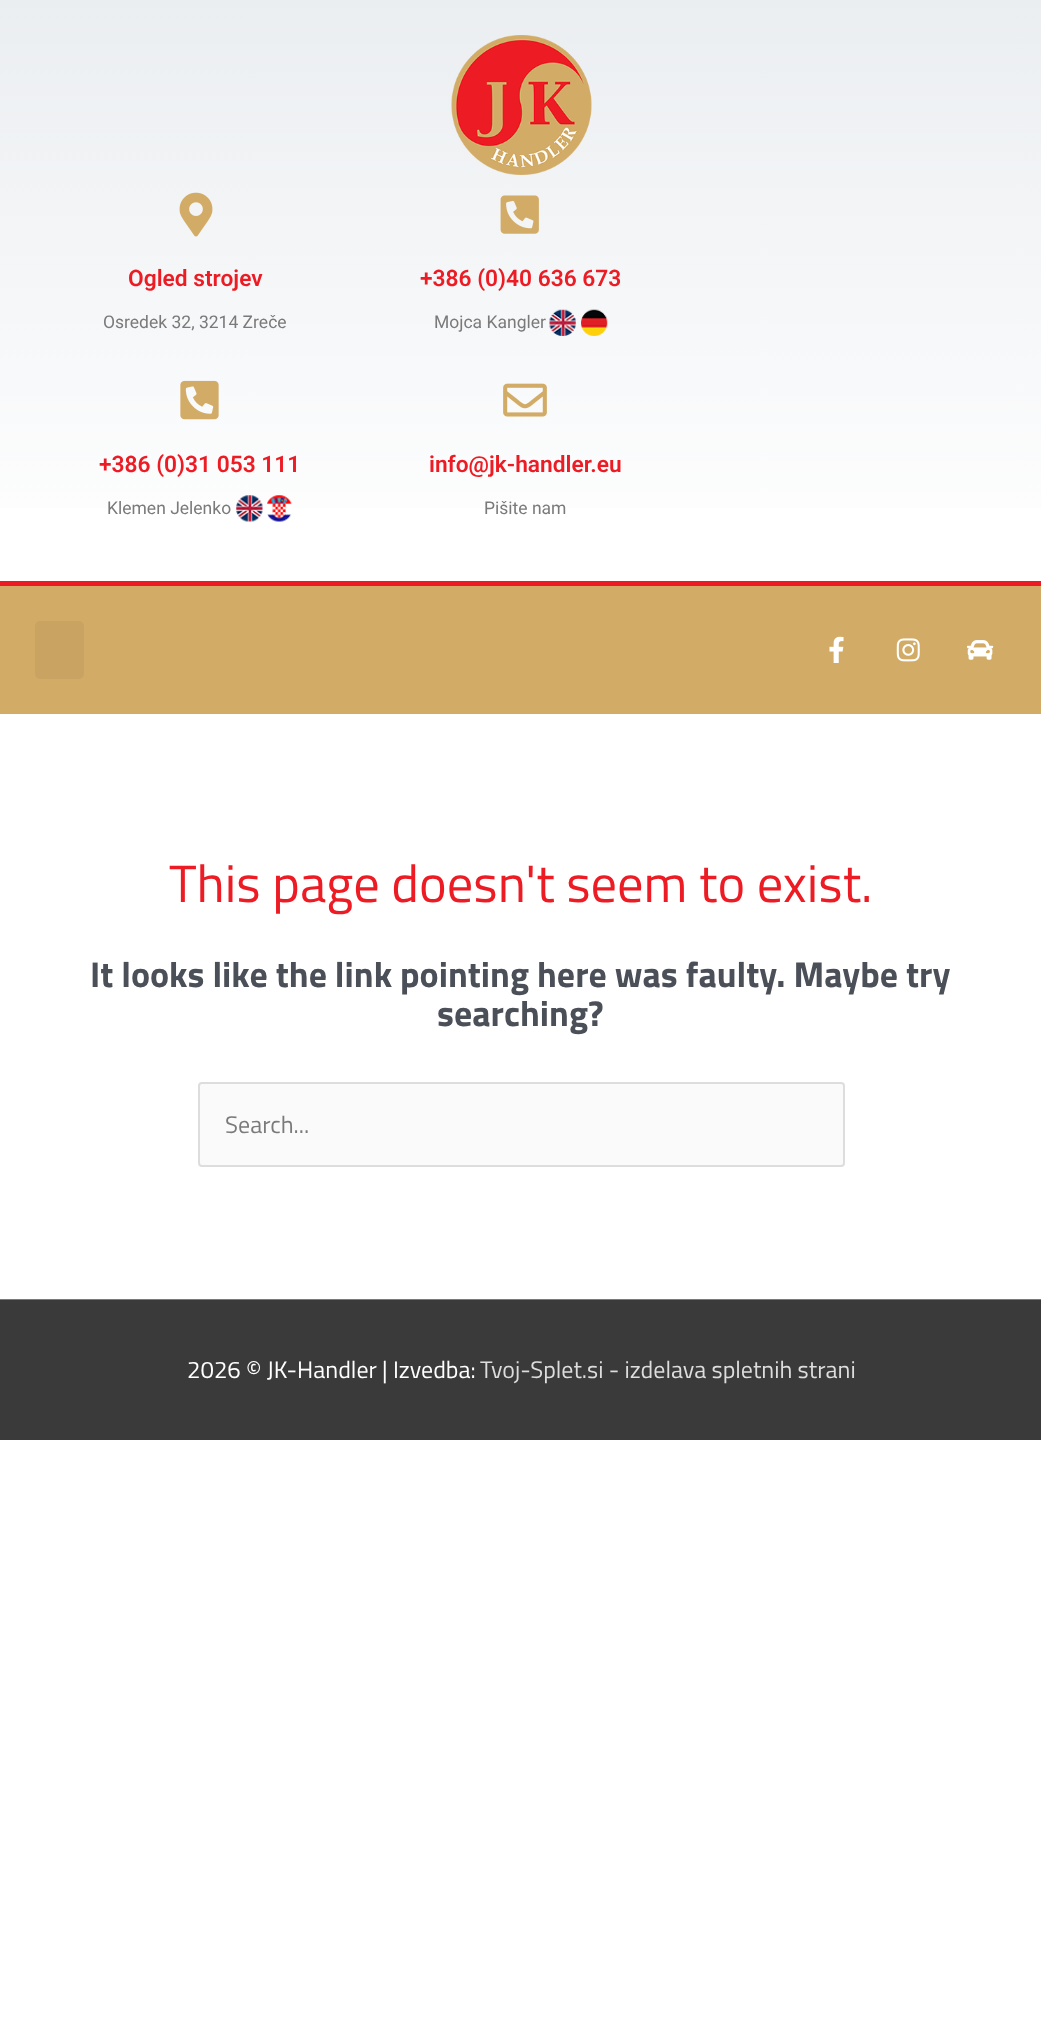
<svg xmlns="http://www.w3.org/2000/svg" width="1041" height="2043">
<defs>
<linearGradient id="g1" gradientUnits="userSpaceOnUse" x1="521" y1="0" x2="521" y2="581"><stop offset="0" stop-color="#ebeef1"/><stop offset="1" stop-color="#fff"/></linearGradient>
</defs>
<rect width="100%" height="100%" fill="#fff"/>
<rect width="1041" height="508" fill="url(#g1)"/>
<image x="451" y="35" width="141" height="140" href="media/1.png"/>
<image x="179" y="192" width="34" height="45" href="media/2.png"/>
<text x="128" y="286" style="font-family:Roboto;font-size:22.75px;font-weight:600;fill:#ed1c24">Ogled strojev</text>
<text x="103" y="328" style="font-family:Roboto;font-size:17.5px;fill:#7a7a7a">Osredek 32, 3214 Zreče</text>
<image x="500" y="195" width="39" height="39" href="media/3.png"/>
<text x="420" y="286" style="font-family:Roboto;font-size:22.75px;font-weight:600;fill:#ed1c24">+386 (0)40 636 673</text>
<text x="434" y="328" style="font-family:Roboto;font-size:17.5px;fill:#7a7a7a">Mojca Kangler</text>
<image x="549" y="309" width="27" height="27" href="media/4.png"/>
<image x="581" y="309" width="27" height="27" href="media/5.png"/>
<image x="180" y="380" width="39" height="40" href="media/6.png"/>
<text x="99" y="472" style="font-family:Roboto;font-size:22.75px;font-weight:600;fill:#ed1c24">+386 (0)31 053 111</text>
<text x="107" y="514" style="font-family:Roboto;font-size:17.5px;fill:#7a7a7a">Klemen Jelenko</text>
<image x="236" y="495" width="27" height="27" href="media/7.png"/>
<image x="267" y="495" width="25" height="27" href="media/8.png"/>
<image x="503" y="383" width="44" height="34" href="media/9.png"/>
<text x="429" y="472" style="font-family:Roboto;font-size:22.75px;font-weight:600;fill:#ed1c24">info@jk-handler.eu</text>
<text x="484" y="514" style="font-family:Roboto;font-size:17.5px;fill:#7a7a7a">Pišite nam</text>
<rect y="586" width="1041" height="128" fill="#d2ac67"/>
<rect y="581" width="1041" height="5" fill="#ed1c24"/>
<rect x="35" y="621" width="49" height="58" rx="5" fill="#c8a362"/>
<image x="829" y="636" width="15" height="27" href="media/10.png"/>
<image x="896" y="638" width="24" height="24" href="media/11.png"/>
<image x="967" y="640" width="27" height="20" href="media/12.png"/>
<text x="169" y="902" style="font-family:Titillium Web;font-size:52.5px;fill:#ed1c24">This page doesn't seem to exist.</text>
<text x="90" y="987" style="font-family:Titillium Web;font-size:35.9px;font-weight:bold;fill:#4b4f58">It looks like the link pointing here was faulty. Maybe try</text>
<text x="437" y="1026" style="font-family:Titillium Web;font-size:35.9px;font-weight:bold;fill:#4b4f58">searching?</text>
<rect x="199" y="1083" width="645" height="83" rx="3" fill="#fafafa" stroke="#ddd" stroke-width="2"/>
<text x="225" y="1133" style="font-family:Titillium Web;font-size:24px;fill:#7a7a7a">Search...</text>
<rect y="1299" width="1041" height="1" fill="#7a7a7a"/>
<rect y="1300" width="1041" height="140" fill="#3a3a3a"/>
<text x="187" y="1378" style="font-family:Titillium Web;font-size:24px;fill:#fff">2026 © JK-Handler | Izvedba:</text>
<text x="480" y="1378" style="font-family:Titillium Web;font-size:24px;fill:#ddd">Tvoj-Splet.si - izdelava spletnih strani</text>
</svg>
